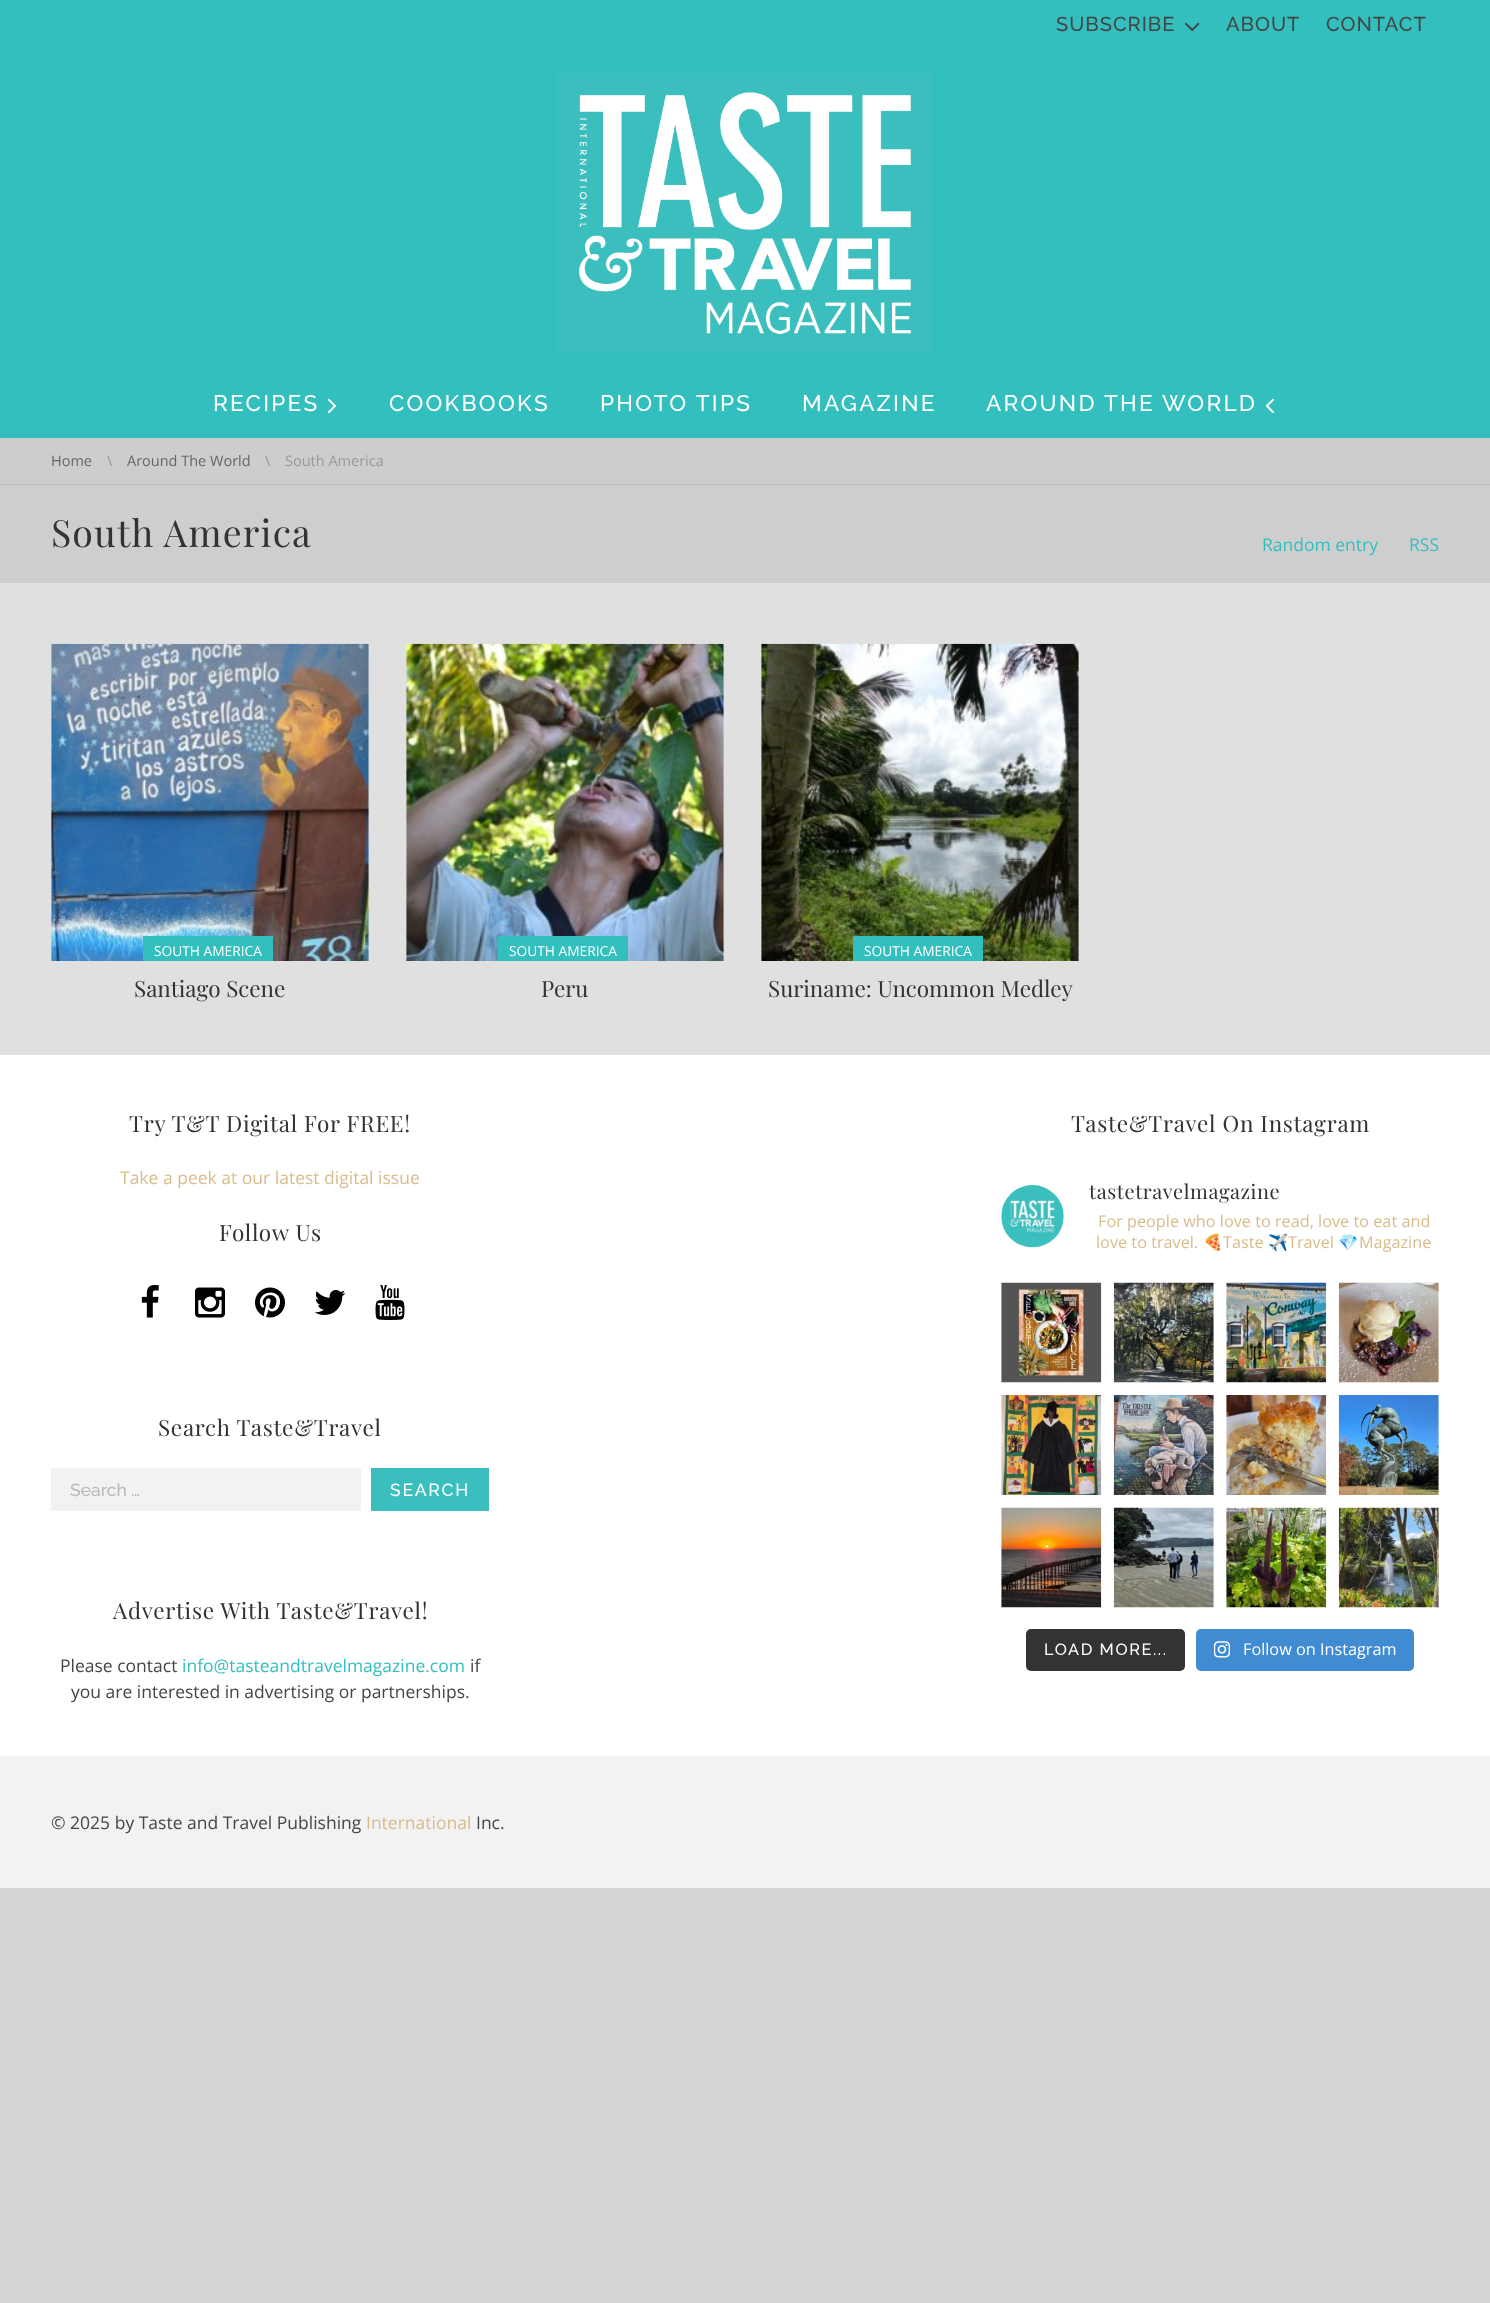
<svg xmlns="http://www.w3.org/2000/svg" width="1490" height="2303">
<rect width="100%" height="100%" fill="#d6d6d6"/>
<rect width="1490" height="438" fill="#32bfbe"/>
<text x="1056" y="31" style="font-family:Raleway;font-size:20px;font-weight:100;letter-spacing:1px;fill:#454545">SUBSCRIBE</text>
<image x="1185" y="22" width="15" height="10" href="media/1.png"/>
<text x="1226" y="31" style="font-family:Raleway;font-size:20px;font-weight:100;letter-spacing:1px;fill:#454545">ABOUT</text>
<text x="1326" y="31" style="font-family:Raleway;font-size:20px;font-weight:100;letter-spacing:1px;fill:#454545">CONTACT</text>
<image x="557" y="72" width="376" height="282" href="media/2.png"/>
<text x="213" y="411" style="font-family:Raleway;font-size:22.5px;font-weight:100;letter-spacing:2.25px;fill:#fff">RECIPES</text>
<image x="327" y="398" width="10" height="16" href="media/3.png"/>
<text x="389" y="411" style="font-family:Raleway;font-size:22.5px;font-weight:100;letter-spacing:2.25px;fill:#fff">COOKBOOKS</text>
<text x="600" y="411" style="font-family:Raleway;font-size:22.5px;font-weight:100;letter-spacing:2.25px;fill:#fff">PHOTO TIPS</text>
<text x="802" y="411" style="font-family:Raleway;font-size:22.5px;font-weight:100;letter-spacing:2.25px;fill:#fff">MAGAZINE</text>
<text x="986" y="411" style="font-family:Raleway;font-size:22.5px;font-weight:100;letter-spacing:2.25px;fill:#fff">AROUND THE WORLD</text>
<image x="1265" y="398" width="10" height="16" href="media/4.png"/>
<rect y="438" width="1490" height="46" fill="#cdcdcd"/>
<rect y="484" width="1490" height="1" fill="#bdbdbd"/>
<text x="51" y="466" style="font-family:Open Sans;font-size:14.5px;fill:#666">Home</text>
<text x="107" y="466" style="font-family:Open Sans;font-size:14.5px;fill:#999">\</text>
<text x="127" y="466" style="font-family:Open Sans;font-size:14.5px;fill:#666">Around The World</text>
<text x="265" y="466" style="font-family:Open Sans;font-size:14.5px;fill:#999">\</text>
<text x="285" y="466" style="font-family:Open Sans;font-size:14.5px;fill:#999">South America</text>
<rect y="485" width="1490" height="98" fill="#cecece"/>
<text x="51" y="547" style="font-family:Playfair Display;font-size:37.5px;letter-spacing:1.1px;fill:#333">South America</text>
<text x="1262" y="551" style="font-family:Open Sans;font-size:17.5px;fill:#32bfbe">Random entry</text>
<text x="1409" y="551" style="font-family:Open Sans;font-size:17.5px;fill:#32bfbe">RSS</text>
<rect y="583" width="1490" height="472" fill="#e0e0e0"/>
<image x="51" y="643" width="318" height="318" href="media/5.png"/>
<rect x="143" y="936" width="130" height="25" fill="#32bfbe"/>
<text x="154" y="956" style="font-family:Open Sans;font-size:13.75px;fill:#fff">SOUTH AMERICA</text>
<text x="134" y="997" style="font-family:Playfair Display;font-size:22.5px;fill:#333">Santiago Scene</text>
<image x="406" y="643" width="318" height="318" href="media/6.png"/>
<rect x="498" y="936" width="130" height="25" fill="#32bfbe"/>
<text x="509" y="956" style="font-family:Open Sans;font-size:13.75px;fill:#fff">SOUTH AMERICA</text>
<text x="541" y="997" style="font-family:Playfair Display;font-size:22.5px;fill:#333">Peru</text>
<image x="761" y="643" width="318" height="318" href="media/7.png"/>
<rect x="853" y="936" width="130" height="25" fill="#32bfbe"/>
<text x="864" y="956" style="font-family:Open Sans;font-size:13.75px;fill:#fff">SOUTH AMERICA</text>
<text x="768" y="997" style="font-family:Playfair Display;font-size:22.5px;fill:#333">Suriname: Uncommon Medley</text>
<rect y="1055" width="1490" height="701" fill="#fff"/>
<text x="129" y="1132" style="font-family:Playfair Display;font-size:22.5px;letter-spacing:0.7px;fill:#333">Try T&amp;T Digital For FREE!</text>
<text x="120" y="1184" style="font-family:Open Sans;font-size:17.5px;fill:#d8bc8a">Take a peek at our latest digital issue</text>
<text x="219" y="1241" style="font-family:Playfair Display;font-size:22.5px;letter-spacing:0.7px;fill:#333">Follow Us</text>
<image x="141" y="1285" width="18" height="33" href="media/8.png"/>
<image x="195" y="1287" width="30" height="31" href="media/9.png"/>
<image x="255" y="1287" width="30" height="31" href="media/10.png"/>
<image x="314" y="1290" width="32" height="25" href="media/11.png"/>
<image x="375" y="1285" width="30" height="35" href="media/12.png"/>
<text x="158" y="1436" style="font-family:Playfair Display;font-size:22.5px;letter-spacing:0.7px;fill:#333">Search Taste&amp;Travel</text>
<rect x="51" y="1468" width="310" height="43" fill="#f2f2f2"/>
<text x="70" y="1496" style="font-family:Raleway;font-size:17.5px;font-weight:100;fill:#b9b9b9">Search …</text>
<rect x="371" y="1468" width="118" height="43" fill="#3bbfbe"/>
<text x="390" y="1496" style="font-family:Raleway;font-size:17.5px;font-weight:100;letter-spacing:1.75px;fill:#fff">SEARCH</text>
<text x="113" y="1619" style="font-family:Playfair Display;font-size:22.5px;letter-spacing:0.7px;fill:#333">Advertise With Taste&amp;Travel!</text>
<text x="60" y="1672" style="font-family:Open Sans;font-size:17.5px;fill:#454545">Please contact</text>
<text x="182" y="1672" style="font-family:Open Sans;font-size:17.5px;fill:#32bfbe">info@tasteandtravelmagazine.com</text>
<text x="470" y="1672" style="font-family:Open Sans;font-size:17.5px;fill:#454545">if</text>
<text x="71" y="1698" style="font-family:Open Sans;font-size:17.5px;fill:#454545">you are interested in advertising or partnerships.</text>
<text x="1071" y="1132" style="font-family:Playfair Display;font-size:22.5px;letter-spacing:0.7px;fill:#333">Taste&amp;Travel On Instagram</text>
<image x="1001" y="1185" width="63" height="63" href="media/13.png"/>
<text x="1089" y="1199" style="font-family:Playfair Display;font-size:20px;letter-spacing:0.6px;fill:#333">tastetravelmagazine</text>
<text x="1098" y="1227" style="font-family:Open Sans;font-size:16.25px;fill:#d8bc8a">For people who love to read, love to eat and</text>
<text x="1096" y="1248" style="font-family:Open Sans;font-size:16.25px;fill:#d8bc8a">love to travel.</text>
<text x="1203" y="1248" style="font-family:Noto Color Emoji;font-size:16.25px;fill:#d8bc8a">🍕</text>
<text x="1223" y="1248" style="font-family:Open Sans;font-size:16.25px;fill:#d8bc8a">Taste</text>
<text x="1268" y="1248" style="font-family:Noto Color Emoji;font-size:16.25px;fill:#d8bc8a">✈️</text>
<text x="1288" y="1248" style="font-family:Open Sans;font-size:16.25px;fill:#d8bc8a">Travel</text>
<text x="1338" y="1248" style="font-family:Noto Color Emoji;font-size:16.25px;fill:#d8bc8a">💎</text>
<text x="1359" y="1248" style="font-family:Open Sans;font-size:16.25px;fill:#d8bc8a">Magazine</text>
<image x="1001" y="1282" width="101" height="101" href="media/14.png"/>
<image x="1113" y="1282" width="101" height="101" href="media/15.png"/>
<image x="1226" y="1282" width="101" height="101" href="media/16.png"/>
<image x="1338" y="1282" width="101" height="101" href="media/17.png"/>
<image x="1001" y="1395" width="101" height="100" href="media/18.png"/>
<image x="1113" y="1395" width="101" height="100" href="media/19.png"/>
<image x="1226" y="1395" width="101" height="100" href="media/20.png"/>
<image x="1338" y="1395" width="101" height="100" href="media/21.png"/>
<image x="1001" y="1507" width="101" height="101" href="media/22.png"/>
<image x="1113" y="1507" width="101" height="101" href="media/23.png"/>
<image x="1226" y="1507" width="101" height="101" href="media/24.png"/>
<image x="1338" y="1507" width="101" height="101" href="media/25.png"/>
<rect x="1026" y="1629" width="159" height="42" rx="5" fill="#333"/>
<text x="1044" y="1655" style="font-family:Raleway;font-size:16.25px;font-weight:100;letter-spacing:1.6px;fill:#fff">LOAD MORE...</text>
<rect x="1196" y="1629" width="218" height="42" rx="5" fill="#408bd1"/>
<image x="1214" y="1641" width="16" height="17" href="media/26.png"/>
<text x="1243" y="1655" style="font-family:Open Sans;font-size:16.25px;fill:#fff">Follow on Instagram</text>
<rect y="1756" width="1490" height="132" fill="#f2f2f2"/>
<text x="51" y="1829" style="font-family:Open Sans;font-size:17.5px;fill:#454545">© 2025 by Taste and Travel Publishing</text>
<text x="366" y="1829" style="font-family:Open Sans;font-size:17.5px;fill:#d8bc8a">International</text>
<text x="476" y="1829" style="font-family:Open Sans;font-size:17.5px;fill:#454545">Inc.</text>
</svg>
